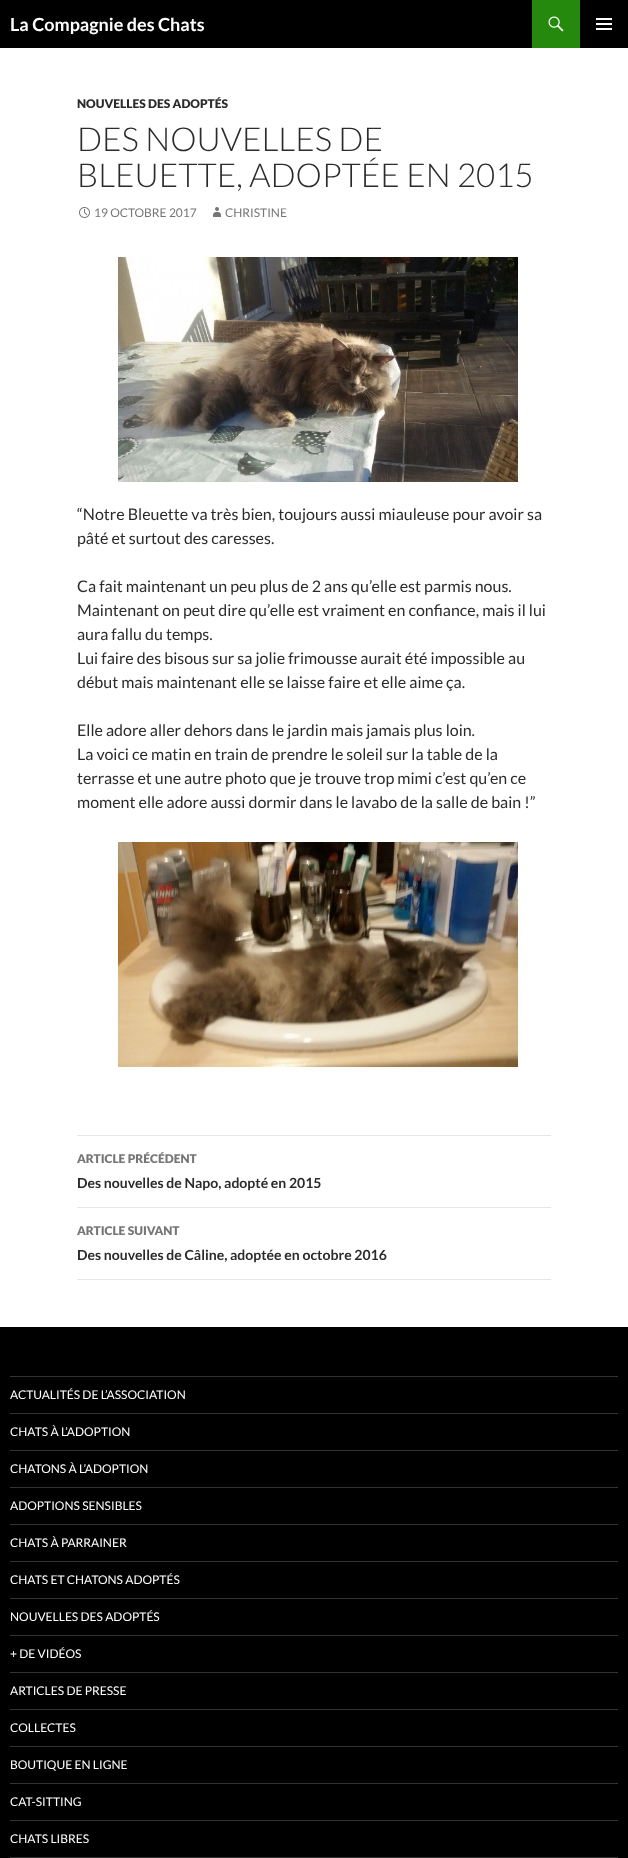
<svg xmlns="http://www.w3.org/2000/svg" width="628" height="1858">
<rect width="100%" height="100%" fill="#fff"/>
<rect width="628" height="48" fill="#000"/>
<text x="10" y="31" style="font-family:Lato;font-size:18px;font-weight:bold;fill:#fff">La Compagnie des Chats</text>
<rect x="532" width="48" height="48" fill="#24890d"/>
<image x="548" y="16" width="16" height="16" href="media/1.png"/>
<image x="596" y="18" width="16" height="12" href="media/2.png"/>
<text x="77" y="108" style="font-family:Lato;font-size:12px;font-weight:900;fill:#2b2b2b">NOUVELLES DES ADOPTÉS</text>
<text x="77" y="151" style="font-family:Lato;font-size:33px;font-weight:300;fill:#2b2b2b">DES NOUVELLES DE</text>
<text x="77" y="187" style="font-family:Lato;font-size:33px;font-weight:300;fill:#2b2b2b">BLEUETTE, ADOPTÉE EN 2015</text>
<image x="79" y="207" width="11" height="11" href="media/3.png"/>
<text x="94" y="217" style="font-family:Lato;font-size:12px;fill:#767676">19 OCTOBRE 2017</text>
<image x="213" y="207" width="8" height="10" href="media/4.png"/>
<text x="225" y="217" style="font-family:Lato;font-size:12px;fill:#767676">CHRISTINE</text>
<image x="118" y="257" width="400" height="225" href="media/5.png"/>
<text x="77" y="520" style="font-family:Lato;font-size:16px;fill:#2b2b2b">“Notre Bleuette va très bien, toujours aussi miauleuse pour avoir sa</text>
<text x="77" y="544" style="font-family:Lato;font-size:16px;fill:#2b2b2b">pâté et surtout des caresses.</text>
<text x="77" y="592" style="font-family:Lato;font-size:16px;fill:#2b2b2b">Ca fait maintenant un peu plus de 2 ans qu’elle est parmis nous.</text>
<text x="77" y="616" style="font-family:Lato;font-size:16px;fill:#2b2b2b">Maintenant on peut dire qu’elle est vraiment en confiance, mais il lui</text>
<text x="77" y="640" style="font-family:Lato;font-size:16px;fill:#2b2b2b">aura fallu du temps.</text>
<text x="77" y="664" style="font-family:Lato;font-size:16px;fill:#2b2b2b">Lui faire des bisous sur sa jolie frimousse aurait été impossible au</text>
<text x="77" y="688" style="font-family:Lato;font-size:16px;fill:#2b2b2b">début mais maintenant elle se laisse faire et elle aime ça.</text>
<text x="77" y="736" style="font-family:Lato;font-size:16px;fill:#2b2b2b">Elle adore aller dehors dans le jardin mais jamais plus loin.</text>
<text x="77" y="760" style="font-family:Lato;font-size:16px;fill:#2b2b2b">La voici ce matin en train de prendre le soleil sur la table de la</text>
<text x="77" y="784" style="font-family:Lato;font-size:16px;fill:#2b2b2b">terrasse et une autre photo que je trouve trop mimi c’est qu’en ce</text>
<text x="77" y="808" style="font-family:Lato;font-size:16px;fill:#2b2b2b">moment elle adore aussi dormir dans le lavabo de la salle de bain !”</text>
<image x="118" y="842" width="400" height="225" href="media/6.png"/>
<rect x="77" y="1135" width="474" height="1" fill="#e6e6e6"/>
<rect x="77" y="1207" width="474" height="1" fill="#e6e6e6"/>
<text x="77" y="1163" style="font-family:Lato;font-size:12px;font-weight:900;fill:#767676">ARTICLE PRÉCÉDENT</text>
<text x="77" y="1188" style="font-family:Lato;font-size:14px;font-weight:bold;fill:#2b2b2b">Des nouvelles de Napo, adopté en 2015</text>
<rect x="77" y="1279" width="474" height="1" fill="#e6e6e6"/>
<text x="77" y="1235" style="font-family:Lato;font-size:12px;font-weight:900;fill:#767676">ARTICLE SUIVANT</text>
<text x="77" y="1260" style="font-family:Lato;font-size:14px;font-weight:bold;fill:#2b2b2b">Des nouvelles de Câline, adoptée en octobre 2016</text>
<rect y="1327" width="628" height="531" fill="#000"/>
<rect x="10" y="1376" width="608" height="1" fill="#333"/>
<text x="10" y="1399" style="font-family:Lato;font-size:12px;fill:#fff">ACTUALITÉS DE L’ASSOCIATION</text>
<rect x="10" y="1413" width="608" height="1" fill="#333"/>
<text x="10" y="1436" style="font-family:Lato;font-size:12px;fill:#fff">CHATS À L’ADOPTION</text>
<rect x="10" y="1450" width="608" height="1" fill="#333"/>
<text x="10" y="1473" style="font-family:Lato;font-size:12px;fill:#fff">CHATONS À L’ADOPTION</text>
<rect x="10" y="1487" width="608" height="1" fill="#333"/>
<text x="10" y="1510" style="font-family:Lato;font-size:12px;fill:#fff">ADOPTIONS SENSIBLES</text>
<rect x="10" y="1524" width="608" height="1" fill="#333"/>
<text x="10" y="1547" style="font-family:Lato;font-size:12px;fill:#fff">CHATS À PARRAINER</text>
<rect x="10" y="1561" width="608" height="1" fill="#333"/>
<text x="10" y="1584" style="font-family:Lato;font-size:12px;fill:#fff">CHATS ET CHATONS ADOPTÉS</text>
<rect x="10" y="1598" width="608" height="1" fill="#333"/>
<text x="10" y="1621" style="font-family:Lato;font-size:12px;fill:#fff">NOUVELLES DES ADOPTÉS</text>
<rect x="10" y="1635" width="608" height="1" fill="#333"/>
<text x="10" y="1658" style="font-family:Lato;font-size:12px;fill:#fff">+ DE VIDÉOS</text>
<rect x="10" y="1672" width="608" height="1" fill="#333"/>
<text x="10" y="1695" style="font-family:Lato;font-size:12px;fill:#fff">ARTICLES DE PRESSE</text>
<rect x="10" y="1709" width="608" height="1" fill="#333"/>
<text x="10" y="1732" style="font-family:Lato;font-size:12px;fill:#fff">COLLECTES</text>
<rect x="10" y="1746" width="608" height="1" fill="#333"/>
<text x="10" y="1769" style="font-family:Lato;font-size:12px;fill:#fff">BOUTIQUE EN LIGNE</text>
<rect x="10" y="1783" width="608" height="1" fill="#333"/>
<text x="10" y="1806" style="font-family:Lato;font-size:12px;fill:#fff">CAT-SITTING</text>
<rect x="10" y="1820" width="608" height="1" fill="#333"/>
<text x="10" y="1843" style="font-family:Lato;font-size:12px;fill:#fff">CHATS LIBRES</text>
<rect x="10" y="1857" width="608" height="1" fill="#333"/>
</svg>
